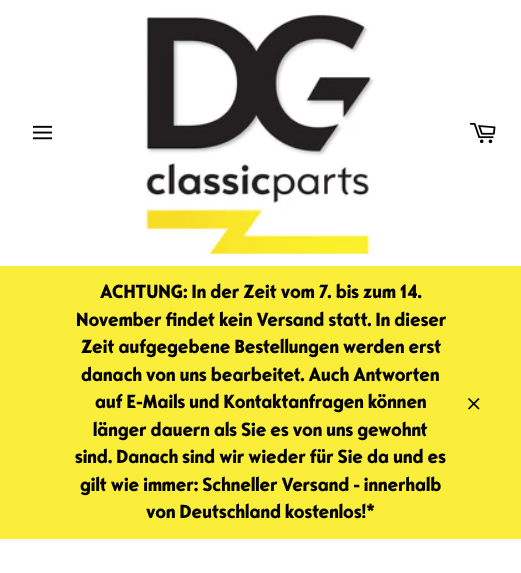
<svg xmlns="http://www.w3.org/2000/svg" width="521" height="573">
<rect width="100%" height="100%" fill="#fff"/>
<image x="32" y="125" width="21" height="15" href="media/1.png"/>
<image x="145" y="14" width="230" height="240" href="media/2.png"/>
<image x="469" y="123" width="27" height="21" href="media/3.png"/>
<rect y="266" width="521" height="273" fill="#fbee3b"/>
<text x="100" y="298" style="font-family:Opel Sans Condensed;font-size:20px;font-weight:800;fill:#030303">ACHTUNG: In der Zeit vom 7. bis zum 14.</text>
<text x="76" y="326" style="font-family:Opel Sans Condensed;font-size:20px;font-weight:800;fill:#030303">November findet kein Versand statt. In dieser</text>
<text x="81" y="353" style="font-family:Opel Sans Condensed;font-size:20px;font-weight:800;fill:#030303">Zeit aufgegebene Bestellungen werden erst</text>
<text x="81" y="381" style="font-family:Opel Sans Condensed;font-size:20px;font-weight:800;fill:#030303">danach von uns bearbeitet. Auch Antworten</text>
<text x="95" y="408" style="font-family:Opel Sans Condensed;font-size:20px;font-weight:800;fill:#030303">auf E-Mails und Kontaktanfragen können</text>
<text x="93" y="436" style="font-family:Opel Sans Condensed;font-size:20px;font-weight:800;fill:#030303">länger dauern als Sie es von uns gewohnt</text>
<text x="75" y="463" style="font-family:Opel Sans Condensed;font-size:20px;font-weight:800;fill:#030303">sind. Danach sind wir wieder für Sie da und es</text>
<text x="80" y="491" style="font-family:Opel Sans Condensed;font-size:20px;font-weight:800;fill:#030303">gilt wie immer: Schneller Versand - innerhalb</text>
<text x="146" y="518" style="font-family:Opel Sans Condensed;font-size:20px;font-weight:800;fill:#030303">von Deutschland kostenlos!*</text>
<image x="468" y="398" width="12" height="12" href="media/4.png"/>
</svg>
